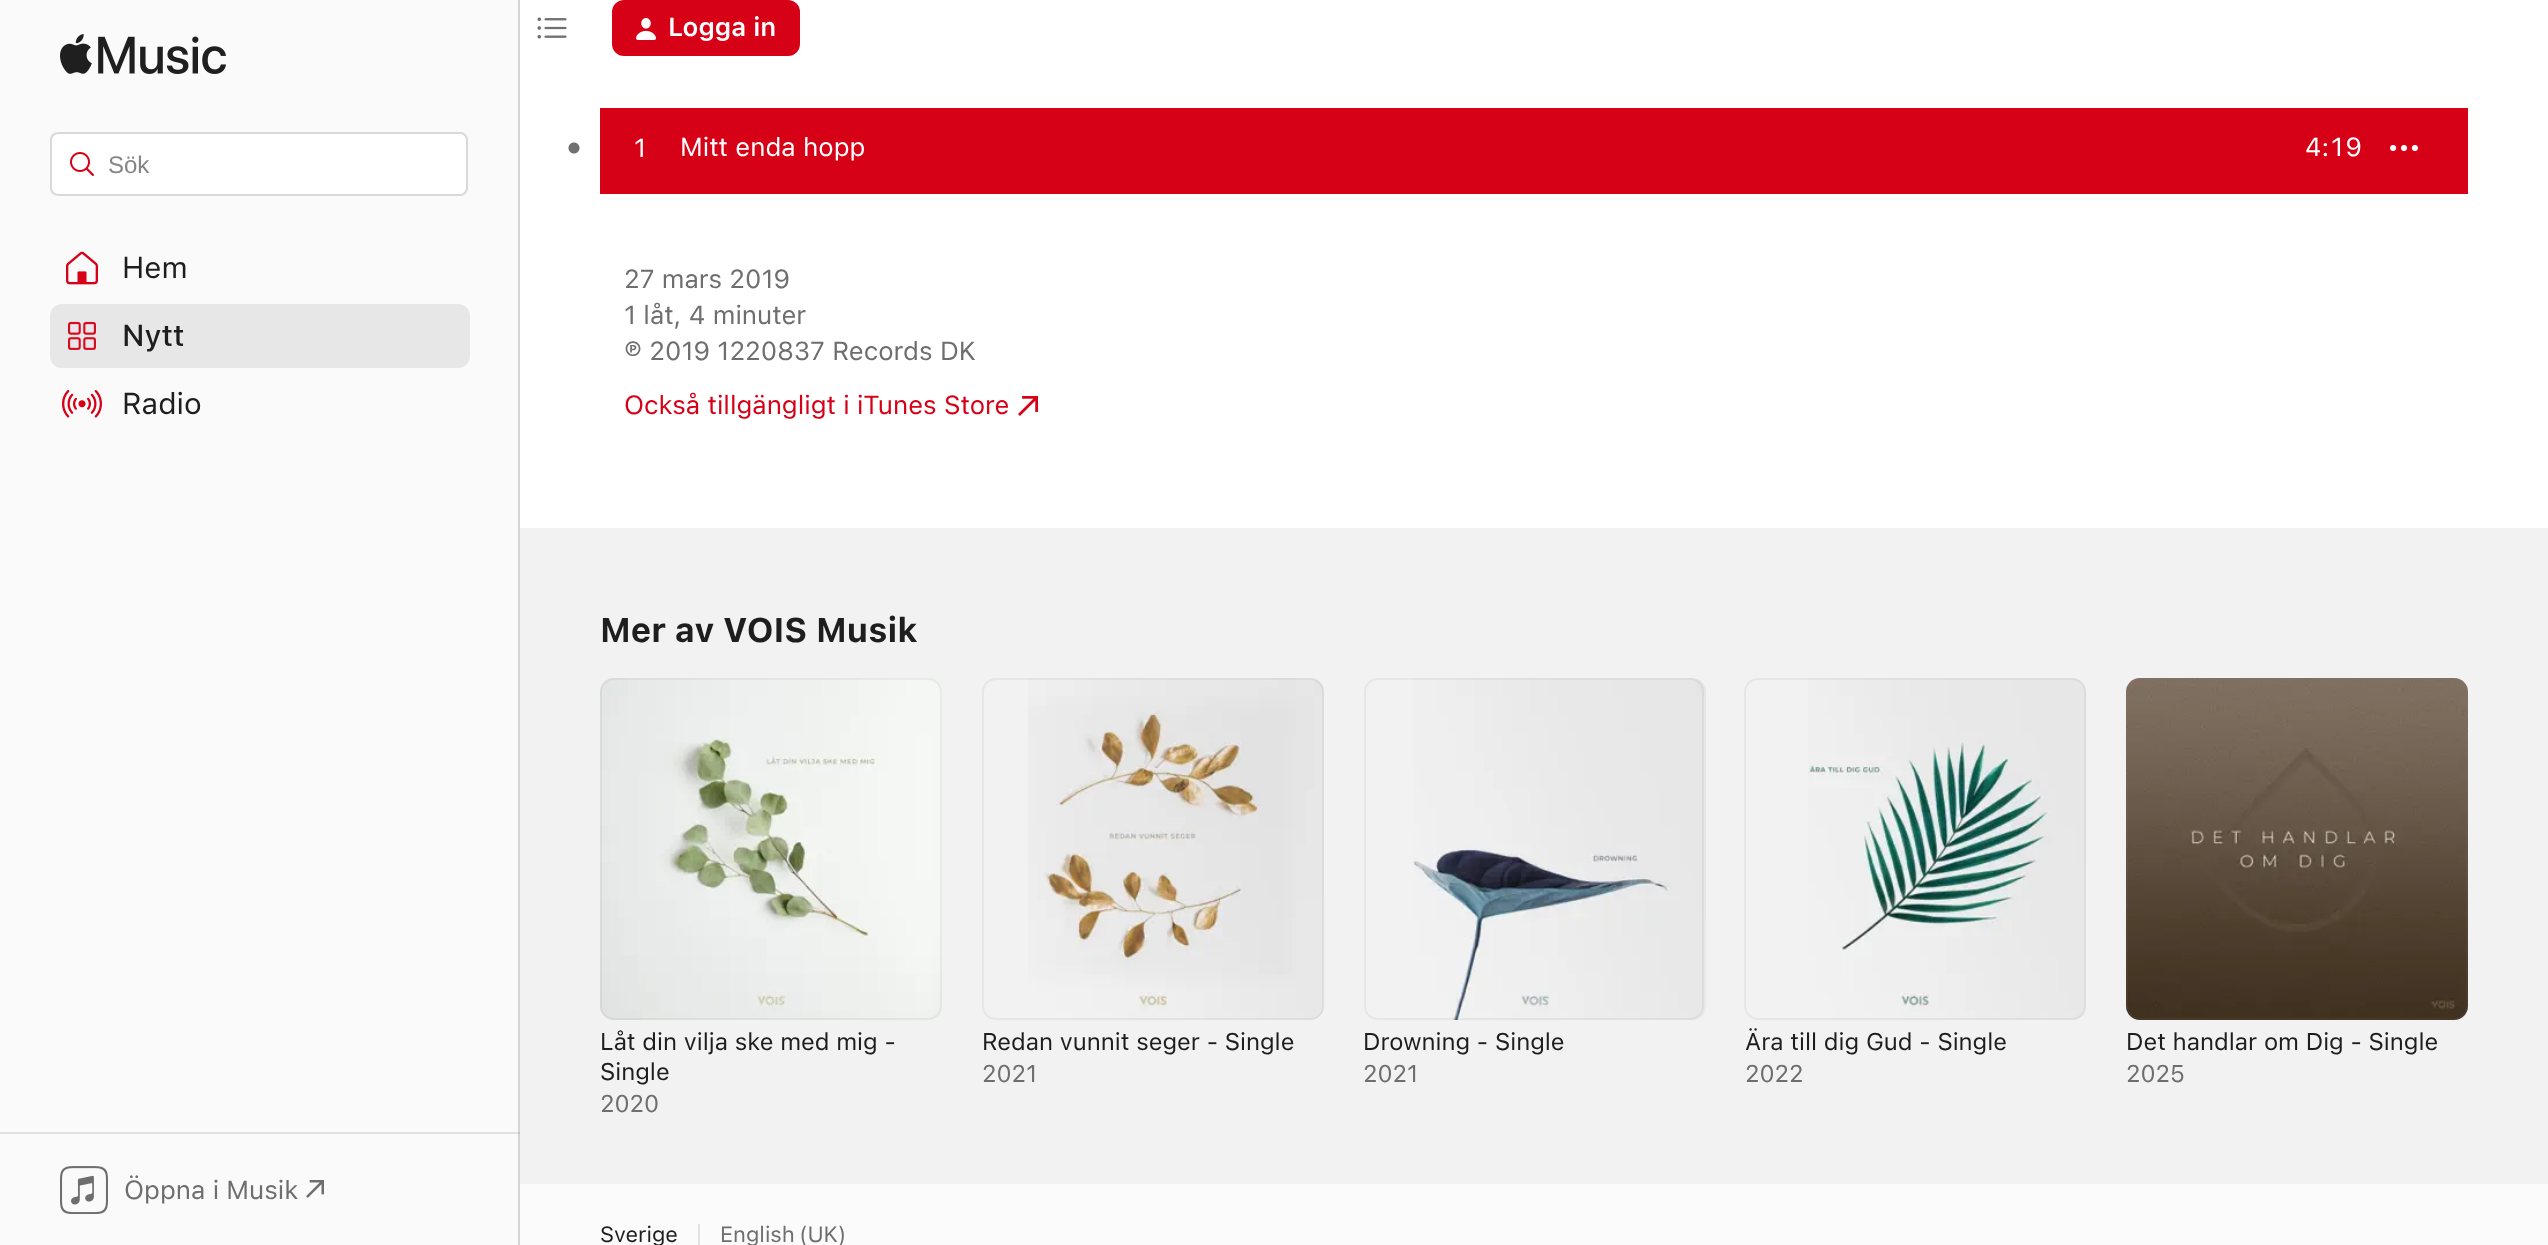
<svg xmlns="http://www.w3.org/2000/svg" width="2548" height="1245">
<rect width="100%" height="100%" fill="#fff"/>
<image x="537" y="17" width="30" height="22" href="media/1.png"/>
<rect x="612" width="188" height="56" rx="12" fill="#d60017"/>
<image x="636" y="18" width="20" height="22" href="media/2.png"/>
<text x="668" y="36" style="font-family:SF;font-size:26px;font-weight:600;fill:#fff">Logga in</text>
<rect width="518" height="1245" fill="#fafafa"/>
<rect y="1132" width="520" height="2" fill="#e1e1e1"/>
<rect x="518" width="2" height="1245" fill="#d5d5d5"/>
<rect x="518" y="1132" width="2" height="2" fill="#c0c0c0"/>
<image x="60" y="34" width="166" height="40" href="media/3.png"/>
<rect x="51" y="133" width="416" height="62" rx="7" fill="#fff" stroke="#d9d9d9" stroke-width="2"/>
<image x="70" y="152" width="24" height="24" href="media/4.png"/>
<text x="108" y="173" style="font-family:Liberation Sans;font-size:24px;fill:#858585">Sök</text>
<image x="66" y="251" width="32" height="34" href="media/5.png"/>
<text x="122" y="278" style="font-family:SF;font-size:30px;fill:#1e1e1e">Hem</text>
<rect x="50" y="304" width="420" height="64" rx="12" fill="#e7e7e8"/>
<image x="68" y="321" width="28" height="29" href="media/6.png"/>
<text x="122" y="346" style="font-family:SF;font-size:30px;font-weight:500;fill:#1e1e1e">Nytt</text>
<image x="62" y="390" width="40" height="28" href="media/7.png"/>
<text x="122" y="414" style="font-family:SF;font-size:30px;fill:#1e1e1e">Radio</text>
<image x="60" y="1166" width="48" height="48" href="media/8.png"/>
<text x="124" y="1199" style="font-family:SF;font-size:26px;fill:#6e6e6e">Öppna i Musik</text>
<image x="306" y="1180" width="18" height="18" href="media/9.png"/>
<rect x="600" y="108" width="1868" height="86" fill="#d60017"/>
<image x="568" y="142" width="12" height="12" href="media/10.png"/>
<text x="634" y="157" style="font-family:SF;font-size:26px;fill:#fff">1</text>
<text x="680" y="156" style="font-family:SF;font-size:26px;fill:#fff">Mitt enda hopp</text>
<text x="2305" y="156" style="font-family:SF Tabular;font-size:26px;fill:#fff">4:19</text>
<image x="2390" y="144" width="28" height="8" href="media/11.png"/>
<text x="624" y="288" style="font-family:SF;font-size:26px;fill:#6e6e6e">27 mars 2019</text>
<text x="624" y="324" style="font-family:SF;font-size:26px;fill:#6e6e6e">1 låt, 4 minuter</text>
<text x="624" y="360" style="font-family:SF;font-size:26px;fill:#6e6e6e">℗ 2019 1220837 Records DK</text>
<text x="624" y="414" style="font-family:SF;font-size:26px;fill:#d60017">Också tillgängligt i iTunes Store</text>
<image x="1018" y="396" width="20" height="20" href="media/12.png"/>
<rect x="520" y="528" width="2028" height="656" fill="#f2f2f2"/>
<text x="600" y="642" style="font-family:SF;font-size:34px;font-weight:bold;fill:#1e1e1e">Mer av VOIS Musik</text>
<image x="600" y="678" width="342" height="342" href="media/13.png"/>
<rect x="601" y="679" width="340" height="340" rx="13" fill="none" stroke="#8080801a" stroke-width="2"/>
<text x="600" y="1050" style="font-family:SF;font-size:24px;fill:#1e1e1e">Låt din vilja ske med mig -</text>
<text x="600" y="1080" style="font-family:SF;font-size:24px;fill:#1e1e1e">Single</text>
<text x="600" y="1112" style="font-family:SF;font-size:24px;fill:#6e6e6e">2020</text>
<image x="1028" y="678" width="296" height="342" href="media/14.png"/>
<rect x="983" y="679" width="340" height="340" rx="13" fill="none" stroke="#8080801a" stroke-width="2"/>
<text x="982" y="1050" style="font-family:SF;font-size:24px;fill:#1e1e1e">Redan vunnit seger - Single</text>
<text x="982" y="1082" style="font-family:SF;font-size:24px;fill:#6e6e6e">2021</text>
<image x="1413" y="678" width="293" height="342" href="media/15.png"/>
<rect x="1365" y="679" width="338" height="340" rx="13" fill="none" stroke="#8080801a" stroke-width="2"/>
<text x="1363" y="1050" style="font-family:SF;font-size:24px;fill:#1e1e1e">Drowning - Single</text>
<text x="1363" y="1082" style="font-family:SF;font-size:24px;fill:#6e6e6e">2021</text>
<image x="1808" y="678" width="278" height="342" href="media/16.png"/>
<rect x="1745" y="679" width="340" height="340" rx="13" fill="none" stroke="#8080801a" stroke-width="2"/>
<text x="1745" y="1050" style="font-family:SF;font-size:24px;fill:#1e1e1e">Ära till dig Gud - Single</text>
<text x="1745" y="1082" style="font-family:SF;font-size:24px;fill:#6e6e6e">2022</text>
<image x="2126" y="678" width="342" height="342" href="media/17.png"/>
<rect x="2127" y="679" width="340" height="340" rx="13" fill="none" stroke="#8080801a" stroke-width="2"/>
<text x="2126" y="1050" style="font-family:SF;font-size:24px;fill:#1e1e1e">Det handlar om Dig - Single</text>
<text x="2126" y="1082" style="font-family:SF;font-size:24px;fill:#6e6e6e">2025</text>
<rect x="520" y="1184" width="2028" height="61" fill="#fbfbfb"/>
<text x="600" y="1242" style="font-family:SF;font-size:22px;fill:#1e1e1e">Sverige</text>
<rect x="698" y="1224" width="2" height="21" fill="#e2e2e2"/>
<text x="720" y="1242" word-spacing="-2" style="font-family:SF;font-size:22px;fill:#6e6e6e">English (UK)</text>
</svg>
